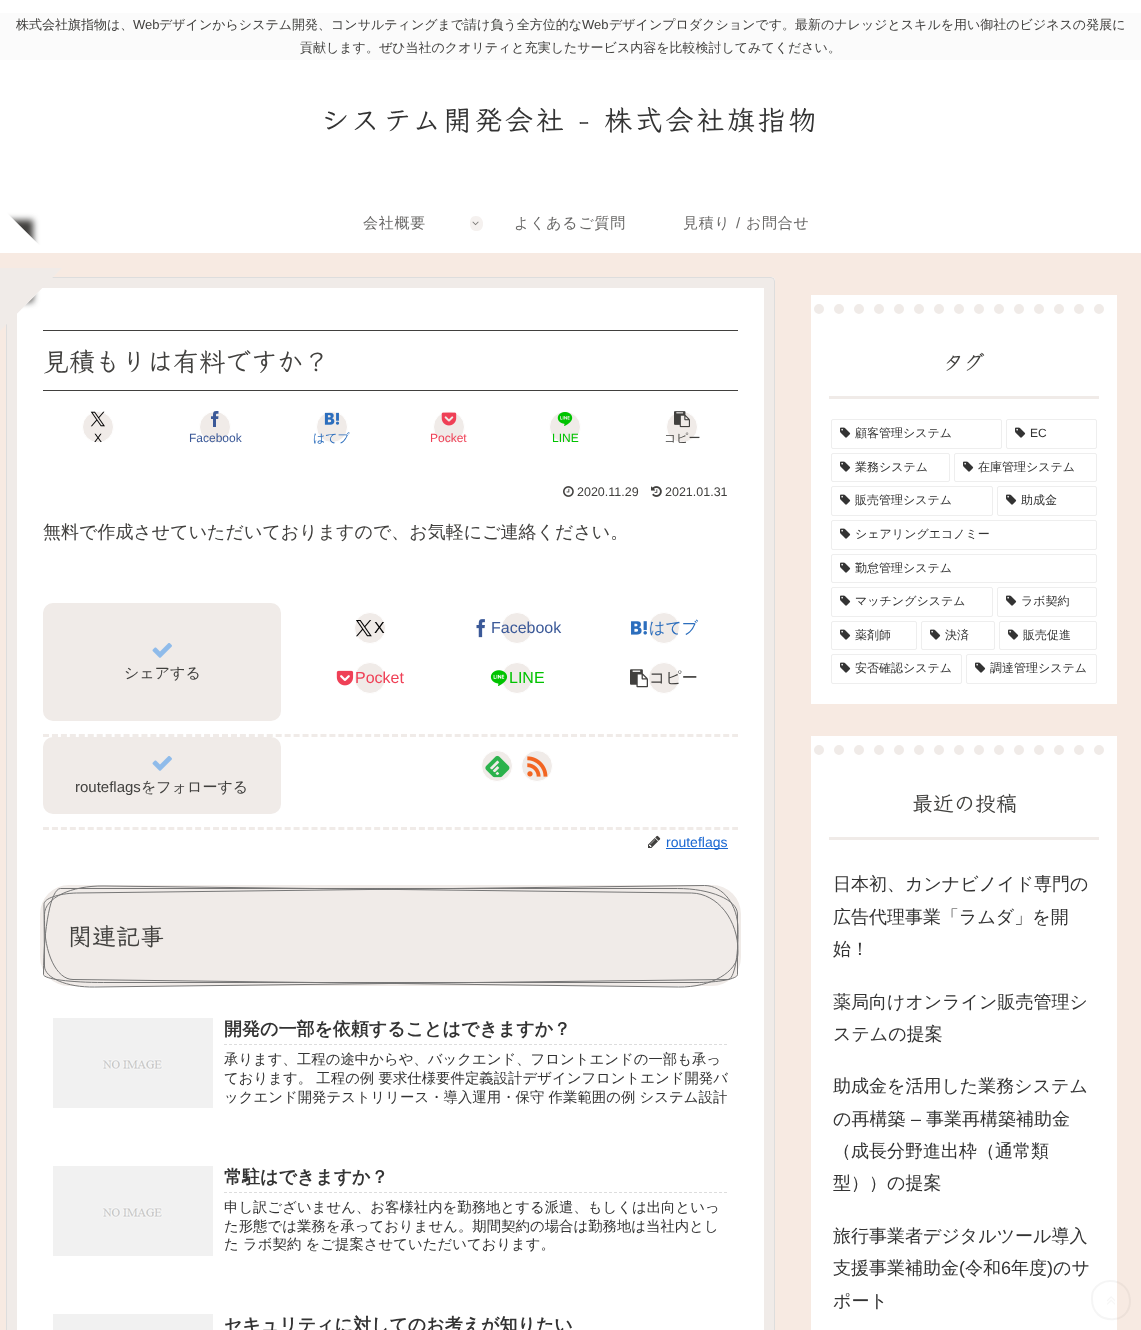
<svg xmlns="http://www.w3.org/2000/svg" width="1141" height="1330">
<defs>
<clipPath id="clip1"><path d="M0 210h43v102h-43zm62.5 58l-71 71l-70.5-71l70.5-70.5z" clip-rule="evenodd"/></clipPath>
</defs>
<rect width="100%" height="100%" fill="#f7eae2"/>
<rect width="1141" height="253" fill="#fff"/>
<rect y="13" width="1141" height="47" fill="#fbfbfb"/>
<text x="16" y="29" style="font-family:WenQuanYi Zen Hei;font-size:13px;font-weight:500;fill:#41403e">株式会社旗指物は、</text>
<text x="133" y="29" style="font-family:Liberation Sans;font-size:13px;fill:#41403e">Web</text>
<text x="159" y="29" style="font-family:WenQuanYi Zen Hei;font-size:13px;font-weight:500;fill:#41403e">デザインからシステム開発、コンサルティングまで請け負う全方位的な</text>
<text x="582" y="29" style="font-family:Liberation Sans;font-size:13px;fill:#41403e">Web</text>
<text x="609" y="29" style="font-family:WenQuanYi Zen Hei;font-size:13px;font-weight:500;fill:#41403e">デザインプロダクションです。最新のナレッジとスキルを用い御社のビジネスの発展に</text>
<text x="300" y="52" style="font-family:WenQuanYi Zen Hei;font-size:13px;font-weight:500;fill:#41403e">貢献します。ぜひ当社のクオリティと充実したサービス内容を比較検討してみてください。</text>
<text x="321" y="130" style="font-family:Klee One;font-size:28px;font-weight:600;letter-spacing:2.75px;fill:#333">システム開発会社 - 株式会社旗指物</text>
<text x="363" y="228" style="font-family:WenQuanYi Zen Hei;font-size:15px;font-weight:500;letter-spacing:0.75px;fill:#696867">会社概要</text>
<path d="M476 216c9 0 9.5 14.5 1.5 15c-5 .5-7.5-2.5-7.5-7.5c0-4 1-7.5 6-7.5z" fill="#f5f1ef"/>
<image x="472" y="221" width="7" height="5" href="media/1.png"/>
<text x="514" y="228" style="font-family:WenQuanYi Zen Hei;font-size:15px;font-weight:500;letter-spacing:0.75px;fill:#696867">よくあるご質問</text>
<text x="683" y="228" style="font-family:WenQuanYi Zen Hei;font-size:15px;font-weight:500;letter-spacing:0.75px;fill:#696867">見積り</text>
<text x="736" y="228" style="font-family:Liberation Sans;font-size:15px;letter-spacing:0.75px;fill:#696867">/</text>
<text x="746" y="228" style="font-family:WenQuanYi Zen Hei;font-size:15px;font-weight:500;letter-spacing:0.75px;fill:#696867">お問合せ</text>
<rect x="6" y="277" width="769" height="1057" rx="4" fill="#fff"/>
<path d="M12 283h757v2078h-757z" fill="none" stroke="#f0ebe8" stroke-width="10"/>
<rect x="6.5" y="277.5" width="768" height="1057" rx="3.5" fill="none" stroke="#ddd"/>
<g clip-path="url(#clip1)">
<rect x="-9" y="220" width="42" height="82" fill="#41403e" filter="blur(3px)"/>
</g>
<rect x="43" y="330" width="695" height="1" fill="#41403e"/>
<path d="M62 268l-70 71v-71z" fill="#f0ebe8"/>
<rect x="43" y="390" width="695" height="1" fill="#41403e"/>
<text x="43" y="371" style="font-family:Klee One;font-size:26px;font-weight:600;fill:#41403e">見積もりは有料ですか？</text>
<circle cx="98" cy="427" r="15.5" fill="#f0ebe8" stroke="#fff"/>
<image x="90" y="411" width="15" height="16" href="media/2.png"/>
<text x="94" y="442" style="font-family:Liberation Sans;font-size:12px;fill:#000">X</text>
<circle cx="215" cy="427" r="15.5" fill="#f0ebe8" stroke="#fff"/>
<image x="211" y="411" width="8" height="16" href="media/3.png"/>
<text x="189" y="442" style="font-family:Liberation Sans;font-size:12px;fill:#3b5998">Facebook</text>
<circle cx="332" cy="427" r="15.5" fill="#f0ebe8" stroke="#fff"/>
<image x="324" y="412" width="16" height="13" href="media/4.png"/>
<text x="313" y="442" style="font-family:WenQuanYi Zen Hei;font-size:12px;font-weight:500;fill:#2c6ebd">はてブ</text>
<circle cx="449" cy="427" r="15.5" fill="#f0ebe8" stroke="#fff"/>
<image x="441" y="412" width="16" height="14" href="media/5.png"/>
<text x="430" y="442" style="font-family:Liberation Sans;font-size:12px;fill:#ef4056">Pocket</text>
<circle cx="565" cy="427" r="15.5" fill="#f0ebe8" stroke="#fff"/>
<image x="557" y="412" width="16" height="14" href="media/6.png"/>
<text x="552" y="442" style="font-family:Liberation Sans;font-size:12px;fill:#00c300">LINE</text>
<circle cx="682" cy="427" r="15.5" fill="#f0ebe8" stroke="#fff"/>
<image x="674" y="411" width="16" height="17" href="media/7.png"/>
<text x="664" y="442" style="font-family:WenQuanYi Zen Hei;font-size:12px;font-weight:500;fill:#41403e">コピー</text>
<image x="563" y="486" width="11" height="11" href="media/8.png"/>
<text x="577" y="496" style="font-family:Liberation Sans;font-size:12.5px;fill:#41403e">2020.11.29</text>
<image x="651" y="486" width="11" height="11" href="media/9.png"/>
<text x="665" y="496" style="font-family:Liberation Sans;font-size:12.5px;fill:#41403e">2021.01.31</text>
<text x="43" y="538" style="font-family:WenQuanYi Zen Hei;font-size:18px;font-weight:500;fill:#41403e">無料で作成させていただいておりますので、お気軽にご連絡ください。</text>
<path d="M43 735.5h695" fill="none" stroke="#f0ebe8" stroke-width="3" stroke-dasharray="6 2.95"/>
<rect x="43" y="603" width="238" height="118" rx="10" fill="#f0ebe8"/>
<image x="152" y="643" width="20" height="15" href="media/10.png"/>
<text x="124" y="678" style="font-family:WenQuanYi Zen Hei;font-size:15px;font-weight:500;fill:#41403e">シェアする</text>
<circle cx="370" cy="628" r="15.5" fill="#f0ebe8" stroke="#fff"/>
<image x="356" y="620" width="16" height="17" href="media/11.png"/>
<text x="374" y="633" style="font-family:Liberation Sans;font-size:16px;fill:#000">X</text>
<image x="476" y="619" width="9" height="19" href="media/12.png"/>
<circle cx="517" cy="628" r="15.5" fill="#f0ebe8" stroke="#fff"/>
<text x="491" y="633" style="font-family:Liberation Sans;font-size:16px;fill:#3b5998">Facebook</text>
<circle cx="664" cy="628" r="15.5" fill="#f0ebe8" stroke="#fff"/>
<image x="631" y="621" width="16" height="14" href="media/13.png"/>
<text x="649" y="633" style="font-family:WenQuanYi Zen Hei;font-size:16px;font-weight:500;fill:#2c6ebd">はてブ</text>
<image x="336" y="670" width="18" height="16" href="media/14.png"/>
<circle cx="370" cy="678" r="15.5" fill="#f0ebe8" stroke="#fff"/>
<text x="355" y="683" style="font-family:Liberation Sans;font-size:16px;fill:#ef4056">Pocket</text>
<circle cx="517" cy="678" r="15.5" fill="#f0ebe8" stroke="#fff"/>
<image x="490" y="670" width="18" height="16" href="media/15.png"/>
<text x="509" y="683" style="font-family:Liberation Sans;font-size:16px;fill:#00c300">LINE</text>
<image x="630" y="669" width="18" height="19" href="media/16.png"/>
<circle cx="664" cy="678" r="15.5" fill="#f0ebe8" stroke="#fff"/>
<text x="649" y="683" style="font-family:WenQuanYi Zen Hei;font-size:16px;font-weight:500;fill:#41403e">コピー</text>
<path d="M43 828.5h695" fill="none" stroke="#f0ebe8" stroke-width="3" stroke-dasharray="6 2.95"/>
<circle cx="497" cy="766" r="15.5" fill="#f0ebe8" stroke="#fff"/>
<image x="485" y="755" width="25" height="23" href="media/17.png"/>
<circle cx="537" cy="766" r="15.5" fill="#f0ebe8" stroke="#fff"/>
<image x="527" y="756" width="21" height="21" href="media/18.png"/>
<rect x="43" y="737" width="238" height="77" rx="10" fill="#f0ebe8"/>
<image x="152" y="756" width="20" height="15" href="media/10.png"/>
<text x="75" y="792" style="font-family:Liberation Sans;font-size:15px;fill:#41403e">routeflags</text>
<text x="141" y="792" style="font-family:WenQuanYi Zen Hei;font-size:15px;font-weight:500;fill:#41403e">をフォローする</text>
<image x="648" y="835" width="13" height="13" href="media/19.png"/>
<rect x="666" y="848" width="62" height="1" fill="#1967d2"/>
<text x="666" y="847" style="font-family:Liberation Sans;font-size:14px;fill:#1967d2">routeflags</text>
<rect x="40" y="885" width="701" height="101" rx="29" fill="#f0ebe8" filter="blur(0.5px)"/>
<path d="M60 888h618c33 0 60 12 60 26v60c0 5-19 9-43 9h-592c-33 0-60-4-60-9c0-47 8-86 17-86z" fill="#f0ebe8"/>
<path d="M60.5 888.5h617c33 0 60 11.5 60 25.5v60.5c0 4.5-19 8-42.5 8h-591.5c-33 0-60-3.5-60-8c0-47.5 7.5-86 17-86z" fill="none" stroke="#777"/>
<text x="68" y="945" style="font-family:Klee One;font-size:24px;font-weight:600;fill:#41403e">関連記事</text>
<path d="M76.5 893l628-7.5c18.5 0 33.5 19.5 33.5 44c.5 27.5-4 50-10 50l-633.5 7.5c-27.5 .5-50-9-50-21l-.5-61.5c-.5-6 14.5-11 32.5-11.5z" fill="none" stroke="#777"/>
<path d="M104 886l587.5 7c26 .5 47 27 46.5 59.5c0 19.5-27 35-59.5 34.5l-605.5-7.5c-16.5 0-29-26.5-28.5-59v-6c0-16.5 26.5-29 59.5-28.5z" fill="none" stroke="#777"/>
<image x="53" y="1018" width="160" height="90" href="media/20.png"/>
<path d="M224 1044.5h503" fill="none" stroke="#ddd" stroke-dasharray="3 2"/>
<text x="224" y="1035" style="font-family:WenQuanYi Zen Hei;font-size:18px;font-weight:bold;fill:#333">開発の一部を依頼することはできますか？</text>
<text x="224" y="1064" style="font-family:WenQuanYi Zen Hei;font-size:14.4px;font-weight:500;fill:#333">承ります、工程の途中からや、バックエンド、フロントエンドの一部も承っ</text>
<text x="224" y="1083" style="font-family:WenQuanYi Zen Hei;font-size:14.4px;font-weight:500;fill:#333">ております。 工程の例 要求仕様要件定義設計デザインフロントエンド開発バ</text>
<text x="224" y="1102" style="font-family:WenQuanYi Zen Hei;font-size:14.4px;font-weight:500;fill:#333">ックエンド開発テストリリース・導入運用・保守 作業範囲の例 システム設計</text>
<image x="53" y="1166" width="160" height="90" href="media/20.png"/>
<path d="M224 1192.5h503" fill="none" stroke="#ddd" stroke-dasharray="3 2"/>
<text x="224" y="1183" style="font-family:WenQuanYi Zen Hei;font-size:18px;font-weight:bold;fill:#333">常駐はできますか？</text>
<text x="224" y="1212" style="font-family:WenQuanYi Zen Hei;font-size:14.4px;font-weight:500;fill:#333">申し訳ございません、お客様社内を勤務地とする派遣、もしくは出向といっ</text>
<text x="224" y="1231" style="font-family:WenQuanYi Zen Hei;font-size:14.4px;font-weight:500;fill:#333">た形態では業務を承っておりません。期間契約の場合は勤務地は当社内とし</text>
<text x="224" y="1249" style="font-family:WenQuanYi Zen Hei;font-size:14.4px;font-weight:500;fill:#333">た ラボ契約 をご提案させていただいております。</text>
<rect x="53" y="1314" width="160" height="16" fill="#f1f1f1"/>
<text x="224" y="1331" style="font-family:WenQuanYi Zen Hei;font-size:18px;font-weight:bold;fill:#333">セキュリティに対してのお考えが知りたい</text>
<rect x="811" y="295" width="306" height="409" fill="#fff"/>
<path d="M819 309h291" fill="none" stroke="#f0ebe8" stroke-width="10" stroke-linecap="round" stroke-dasharray="0 20"/>
<rect x="829" y="396" width="270" height="3" fill="#f0ebe8"/>
<text x="943" y="370" style="font-family:Klee One;font-size:21px;font-weight:600;fill:#41403e">タグ</text>
<rect x="831.5" y="419.5" width="170" height="29" rx="1.5" fill="none" stroke="#eee"/>
<image x="840" y="427" width="11" height="11" href="media/21.png"/>
<text x="855" y="437" style="font-family:WenQuanYi Zen Hei;font-size:12px;font-weight:500;fill:#333">顧客管理システム</text>
<rect x="1006.5" y="419.5" width="90" height="29" rx="1.5" fill="none" stroke="#eee"/>
<image x="1015" y="427" width="11" height="11" href="media/21.png"/>
<text x="1030" y="437" style="font-family:Liberation Sans;font-size:12px;fill:#333">EC</text>
<rect x="831.5" y="453.5" width="118" height="28" rx="1.5" fill="none" stroke="#eee"/>
<image x="840" y="461" width="11" height="11" href="media/21.png"/>
<text x="855" y="471" style="font-family:WenQuanYi Zen Hei;font-size:12px;font-weight:500;fill:#333">業務システム</text>
<rect x="954.5" y="453.5" width="142" height="28" rx="1.5" fill="none" stroke="#eee"/>
<image x="963" y="461" width="11" height="11" href="media/21.png"/>
<text x="978" y="471" style="font-family:WenQuanYi Zen Hei;font-size:12px;font-weight:500;fill:#333">在庫管理システム</text>
<rect x="831.5" y="486.5" width="161" height="29" rx="1.5" fill="none" stroke="#eee"/>
<image x="840" y="494" width="11" height="11" href="media/21.png"/>
<text x="855" y="504" style="font-family:WenQuanYi Zen Hei;font-size:12px;font-weight:500;fill:#333">販売管理システム</text>
<rect x="997.5" y="486.5" width="99" height="29" rx="1.5" fill="none" stroke="#eee"/>
<image x="1006" y="494" width="11" height="11" href="media/21.png"/>
<text x="1021" y="504" style="font-family:WenQuanYi Zen Hei;font-size:12px;font-weight:500;fill:#333">助成金</text>
<rect x="831.5" y="520.5" width="265" height="29" rx="1.5" fill="none" stroke="#eee"/>
<image x="840" y="528" width="11" height="11" href="media/21.png"/>
<text x="855" y="538" style="font-family:WenQuanYi Zen Hei;font-size:12px;font-weight:500;fill:#333">シェアリングエコノミー</text>
<rect x="831.5" y="554.5" width="265" height="28" rx="1.5" fill="none" stroke="#eee"/>
<image x="840" y="562" width="11" height="11" href="media/21.png"/>
<text x="855" y="572" style="font-family:WenQuanYi Zen Hei;font-size:12px;font-weight:500;fill:#333">勤怠管理システム</text>
<rect x="831.5" y="587.5" width="161" height="29" rx="1.5" fill="none" stroke="#eee"/>
<image x="840" y="595" width="11" height="11" href="media/21.png"/>
<text x="855" y="605" style="font-family:WenQuanYi Zen Hei;font-size:12px;font-weight:500;fill:#333">マッチングシステム</text>
<rect x="997.5" y="587.5" width="99" height="29" rx="1.5" fill="none" stroke="#eee"/>
<image x="1006" y="595" width="11" height="11" href="media/21.png"/>
<text x="1021" y="605" style="font-family:WenQuanYi Zen Hei;font-size:12px;font-weight:500;fill:#333">ラボ契約</text>
<rect x="831.5" y="621.5" width="85" height="28" rx="1.5" fill="none" stroke="#eee"/>
<image x="840" y="629" width="11" height="11" href="media/21.png"/>
<text x="855" y="639" style="font-family:WenQuanYi Zen Hei;font-size:12px;font-weight:500;fill:#333">薬剤師</text>
<rect x="921.5" y="621.5" width="73" height="28" rx="1.5" fill="none" stroke="#eee"/>
<image x="930" y="629" width="11" height="11" href="media/21.png"/>
<text x="945" y="639" style="font-family:WenQuanYi Zen Hei;font-size:12px;font-weight:500;fill:#333">決済</text>
<rect x="999.5" y="621.5" width="97" height="28" rx="1.5" fill="none" stroke="#eee"/>
<image x="1008" y="629" width="11" height="11" href="media/21.png"/>
<text x="1023" y="639" style="font-family:WenQuanYi Zen Hei;font-size:12px;font-weight:500;fill:#333">販売促進</text>
<rect x="831.5" y="654.5" width="130" height="29" rx="1.5" fill="none" stroke="#eee"/>
<image x="840" y="662" width="11" height="11" href="media/21.png"/>
<text x="855" y="672" style="font-family:WenQuanYi Zen Hei;font-size:12px;font-weight:500;fill:#333">安否確認システム</text>
<rect x="966.5" y="654.5" width="130" height="29" rx="1.5" fill="none" stroke="#eee"/>
<image x="975" y="662" width="11" height="11" href="media/21.png"/>
<text x="990" y="672" style="font-family:WenQuanYi Zen Hei;font-size:12px;font-weight:500;fill:#333">調達管理システム</text>
<rect x="811" y="736" width="306" height="594" fill="#fff"/>
<path d="M819 750h291" fill="none" stroke="#f0ebe8" stroke-width="10" stroke-linecap="round" stroke-dasharray="0 20"/>
<rect x="829" y="837" width="270" height="3" fill="#f0ebe8"/>
<text x="912" y="811" style="font-family:Klee One;font-size:21px;font-weight:600;fill:#41403e">最近の投稿</text>
<text x="833" y="890" style="font-family:WenQuanYi Zen Hei;font-size:18px;font-weight:500;fill:#333">日本初、カンナビノイド専門の</text>
<text x="833" y="923" style="font-family:WenQuanYi Zen Hei;font-size:18px;font-weight:500;fill:#333">広告代理事業「ラムダ」を開</text>
<text x="833" y="955" style="font-family:WenQuanYi Zen Hei;font-size:18px;font-weight:500;fill:#333">始！</text>
<text x="833" y="1008" style="font-family:WenQuanYi Zen Hei;font-size:18px;font-weight:500;fill:#333">薬局向けオンライン販売管理シ</text>
<text x="833" y="1040" style="font-family:WenQuanYi Zen Hei;font-size:18px;font-weight:500;fill:#333">ステムの提案</text>
<text x="833" y="1092" style="font-family:WenQuanYi Zen Hei;font-size:18px;font-weight:500;fill:#333">助成金を活用した業務システム</text>
<text x="833" y="1125" style="font-family:WenQuanYi Zen Hei;font-size:18px;font-weight:500;fill:#333">の再構築</text>
<text x="911" y="1125" style="font-family:Liberation Sans;font-size:18px;fill:#333">–</text>
<text x="926" y="1125" style="font-family:WenQuanYi Zen Hei;font-size:18px;font-weight:500;fill:#333">事業再構築補助金</text>
<text x="833" y="1157" style="font-family:WenQuanYi Zen Hei;font-size:18px;font-weight:500;fill:#333">（成長分野進出枠（通常類</text>
<text x="833" y="1189" style="font-family:WenQuanYi Zen Hei;font-size:18px;font-weight:500;fill:#333">型））の提案</text>
<text x="833" y="1242" style="font-family:WenQuanYi Zen Hei;font-size:18px;font-weight:500;fill:#333">旅行事業者デジタルツール導入</text>
<text x="833" y="1274" style="font-family:WenQuanYi Zen Hei;font-size:18px;font-weight:500;fill:#333">支援事業補助金</text>
<text x="959" y="1274" style="font-family:Liberation Sans;font-size:18px;fill:#333">(</text>
<text x="965" y="1274" style="font-family:WenQuanYi Zen Hei;font-size:18px;font-weight:500;fill:#333">令和</text>
<text x="1001" y="1274" style="font-family:Liberation Sans;font-size:18px;fill:#333">6</text>
<text x="1011" y="1274" style="font-family:WenQuanYi Zen Hei;font-size:18px;font-weight:500;fill:#333">年度</text>
<text x="1047" y="1274" style="font-family:Liberation Sans;font-size:18px;fill:#333">)</text>
<text x="1053" y="1274" style="font-family:WenQuanYi Zen Hei;font-size:18px;font-weight:500;fill:#333">のサ</text>
<text x="833" y="1307" style="font-family:WenQuanYi Zen Hei;font-size:18px;font-weight:500;fill:#333">ポート</text>
<path d="M1110 1281c25 0 26.5 36 4.5 38c-13 1.5-22.5-6.5-22.5-20c0-3 0-6 1.5-8.5c3-6 10-9.5 16.5-9.5z" fill="none" stroke="#41403e0d" stroke-width="2"/>
<image x="1107" y="1296" width="8" height="9" href="media/22.png"/>
</svg>
